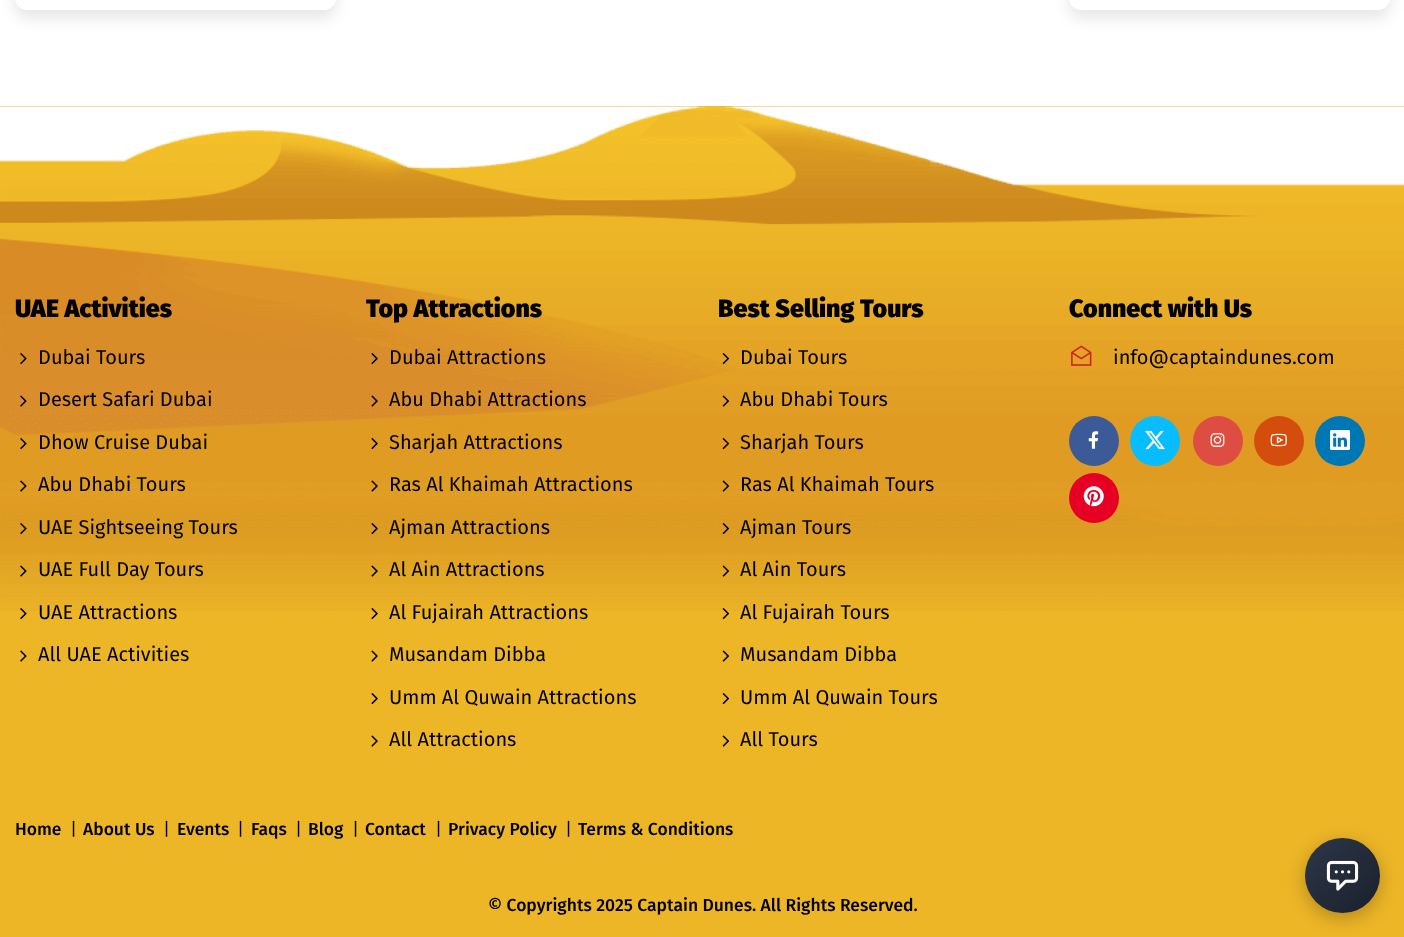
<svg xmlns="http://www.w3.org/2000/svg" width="1404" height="937">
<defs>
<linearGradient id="g1" gradientUnits="userSpaceOnUse" x1="1305" y1="838" x2="1380" y2="913"><stop offset="0" stop-color="#2d3748"/><stop offset="1" stop-color="#1a202c"/></linearGradient>
</defs>
<rect width="100%" height="100%" fill="#fff"/>
<rect x="15" y="-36" width="321" height="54" rx="13" fill="#0000001a" filter="blur(7.5px)"/>
<rect x="15" y="-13" width="321" height="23" rx="13" fill="#fff"/>
<rect x="1069" y="-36" width="321" height="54" rx="13" fill="#0000001a" filter="blur(7.5px)"/>
<rect x="1069" y="-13" width="321" height="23" rx="13" fill="#fff"/>
<rect y="106" width="1404" height="831" fill="#edb627"/>
<image x="0" y="106" width="1404" height="505" href="media/1.png"/>
<text x="15" y="317" style="font-family:Fira Sans;font-size:25px;font-weight:900;fill:#000">UAE Activities</text>
<image x="20" y="353" width="7" height="12" href="media/2.png"/>
<text x="38" y="364" style="font-family:Fira Sans;font-size:20px;fill:#000">Dubai Tours</text>
<image x="20" y="395" width="7" height="12" href="media/3.png"/>
<text x="38" y="406" style="font-family:Fira Sans;font-size:20px;fill:#000">Desert Safari Dubai</text>
<image x="20" y="438" width="7" height="12" href="media/4.png"/>
<text x="38" y="449" style="font-family:Fira Sans;font-size:20px;fill:#000">Dhow Cruise Dubai</text>
<image x="20" y="480" width="7" height="12" href="media/5.png"/>
<text x="38" y="491" style="font-family:Fira Sans;font-size:20px;fill:#000">Abu Dhabi Tours</text>
<image x="20" y="523" width="7" height="12" href="media/6.png"/>
<text x="38" y="534" style="font-family:Fira Sans;font-size:20px;fill:#000">UAE Sightseeing Tours</text>
<image x="20" y="565" width="7" height="12" href="media/7.png"/>
<text x="38" y="576" style="font-family:Fira Sans;font-size:20px;fill:#000">UAE Full Day Tours</text>
<image x="20" y="608" width="7" height="12" href="media/8.png"/>
<text x="38" y="619" style="font-family:Fira Sans;font-size:20px;fill:#000">UAE Attractions</text>
<image x="20" y="650" width="7" height="12" href="media/9.png"/>
<text x="38" y="661" style="font-family:Fira Sans;font-size:20px;fill:#000">All UAE Activities</text>
<text x="366" y="317" style="font-family:Fira Sans;font-size:25px;font-weight:900;fill:#000">Top Attractions</text>
<image x="371" y="353" width="7" height="12" href="media/10.png"/>
<text x="389" y="364" style="font-family:Fira Sans;font-size:20px;fill:#000">Dubai Attractions</text>
<image x="371" y="395" width="7" height="12" href="media/11.png"/>
<text x="389" y="406" style="font-family:Fira Sans;font-size:20px;fill:#000">Abu Dhabi Attractions</text>
<image x="371" y="438" width="7" height="12" href="media/12.png"/>
<text x="389" y="449" style="font-family:Fira Sans;font-size:20px;fill:#000">Sharjah Attractions</text>
<image x="371" y="480" width="7" height="12" href="media/13.png"/>
<text x="389" y="491" style="font-family:Fira Sans;font-size:20px;fill:#000">Ras Al Khaimah Attractions</text>
<image x="371" y="523" width="7" height="12" href="media/14.png"/>
<text x="389" y="534" style="font-family:Fira Sans;font-size:20px;fill:#000">Ajman Attractions</text>
<image x="371" y="565" width="7" height="12" href="media/15.png"/>
<text x="389" y="576" style="font-family:Fira Sans;font-size:20px;fill:#000">Al Ain Attractions</text>
<image x="371" y="608" width="7" height="12" href="media/16.png"/>
<text x="389" y="619" style="font-family:Fira Sans;font-size:20px;fill:#000">Al Fujairah Attractions</text>
<image x="371" y="650" width="7" height="12" href="media/17.png"/>
<text x="389" y="661" style="font-family:Fira Sans;font-size:20px;fill:#000">Musandam Dibba</text>
<image x="371" y="693" width="7" height="12" href="media/18.png"/>
<text x="389" y="704" style="font-family:Fira Sans;font-size:20px;fill:#000">Umm Al Quwain Attractions</text>
<image x="371" y="735" width="7" height="12" href="media/17.png"/>
<text x="389" y="746" style="font-family:Fira Sans;font-size:20px;fill:#000">All Attractions</text>
<text x="718" y="317" style="font-family:Fira Sans;font-size:25px;font-weight:900;fill:#000">Best Selling Tours</text>
<image x="722" y="353" width="8" height="12" href="media/19.png"/>
<text x="740" y="364" style="font-family:Fira Sans;font-size:20px;fill:#000">Dubai Tours</text>
<image x="722" y="395" width="8" height="12" href="media/20.png"/>
<text x="740" y="406" style="font-family:Fira Sans;font-size:20px;fill:#000">Abu Dhabi Tours</text>
<image x="722" y="438" width="8" height="12" href="media/21.png"/>
<text x="740" y="449" style="font-family:Fira Sans;font-size:20px;fill:#000">Sharjah Tours</text>
<image x="722" y="480" width="8" height="12" href="media/22.png"/>
<text x="740" y="491" style="font-family:Fira Sans;font-size:20px;fill:#000">Ras Al Khaimah Tours</text>
<image x="722" y="523" width="8" height="12" href="media/23.png"/>
<text x="740" y="534" style="font-family:Fira Sans;font-size:20px;fill:#000">Ajman Tours</text>
<image x="722" y="565" width="8" height="12" href="media/24.png"/>
<text x="740" y="576" style="font-family:Fira Sans;font-size:20px;fill:#000">Al Ain Tours</text>
<image x="722" y="608" width="8" height="12" href="media/25.png"/>
<text x="740" y="619" style="font-family:Fira Sans;font-size:20px;fill:#000">Al Fujairah Tours</text>
<image x="722" y="650" width="8" height="12" href="media/26.png"/>
<text x="740" y="661" style="font-family:Fira Sans;font-size:20px;fill:#000">Musandam Dibba</text>
<image x="722" y="693" width="8" height="12" href="media/27.png"/>
<text x="740" y="704" style="font-family:Fira Sans;font-size:20px;fill:#000">Umm Al Quwain Tours</text>
<image x="722" y="735" width="8" height="12" href="media/26.png"/>
<text x="740" y="746" style="font-family:Fira Sans;font-size:20px;fill:#000">All Tours</text>
<text x="1069" y="317" style="font-family:Fira Sans;font-size:25px;font-weight:900;fill:#000">Connect with Us</text>
<image x="1071" y="345" width="21" height="21" href="media/28.png"/>
<text x="1113" y="364" style="font-family:Fira Sans;font-size:20px;fill:#000">info@captaindunes.com</text>
<circle cx="1094" cy="441" r="25" fill="#3c5998"/>
<image x="1088" y="431" width="11" height="18" href="media/29.png"/>
<circle cx="1155" cy="441" r="25" fill="#07bcff"/>
<image x="1145" y="430" width="20" height="20" href="media/30.png"/>
<circle cx="1218" cy="441" r="25" fill="#dd4d42"/>
<image x="1210" y="433" width="15" height="14" href="media/31.png"/>
<circle cx="1279" cy="441" r="25" fill="#d54d0d"/>
<image x="1270" y="433" width="17" height="14" href="media/32.png"/>
<circle cx="1340" cy="441" r="25" fill="#0077b5"/>
<image x="1330" y="430" width="20" height="20" href="media/33.png"/>
<circle cx="1094" cy="498" r="25" fill="#e60023"/>
<image x="1083" y="486" width="21" height="21" href="media/34.png"/>
<text x="15" y="835" style="font-family:Fira Sans;font-size:17.5px;font-weight:500;fill:#000">Home</text>
<text x="70" y="835" style="font-family:Fira Sans;font-size:17.5px;fill:#000">|</text>
<text x="83" y="835" style="font-family:Fira Sans;font-size:17.5px;font-weight:500;fill:#000">About Us</text>
<text x="163" y="835" style="font-family:Fira Sans;font-size:17.5px;fill:#000">|</text>
<text x="177" y="835" style="font-family:Fira Sans;font-size:17.5px;font-weight:500;fill:#000">Events</text>
<text x="237" y="835" style="font-family:Fira Sans;font-size:17.5px;fill:#000">|</text>
<text x="251" y="835" style="font-family:Fira Sans;font-size:17.5px;font-weight:500;fill:#000">Faqs</text>
<text x="295" y="835" style="font-family:Fira Sans;font-size:17.5px;fill:#000">|</text>
<text x="308" y="835" style="font-family:Fira Sans;font-size:17.5px;font-weight:500;fill:#000">Blog</text>
<text x="352" y="835" style="font-family:Fira Sans;font-size:17.5px;fill:#000">|</text>
<text x="365" y="835" style="font-family:Fira Sans;font-size:17.5px;font-weight:500;fill:#000">Contact</text>
<text x="435" y="835" style="font-family:Fira Sans;font-size:17.5px;fill:#000">|</text>
<text x="448" y="835" style="font-family:Fira Sans;font-size:17.5px;font-weight:500;fill:#000">Privacy Policy</text>
<text x="565" y="835" style="font-family:Fira Sans;font-size:17.5px;fill:#000">|</text>
<text x="578" y="835" style="font-family:Fira Sans;font-size:17.5px;font-weight:500;fill:#000">Terms &amp; Conditions</text>
<text x="488" y="911" style="font-family:Fira Sans;font-size:17.5px;font-weight:500;fill:#000">© Copyrights 2025 Captain Dunes. All Rights Reserved.</text>
<rect x="1305" y="843" width="75" height="75" rx="37.5" fill="#00000040" filter="blur(9px)"/>
<circle cx="1342.5" cy="875.5" r="37.5" fill="url(#g1)"/>
<image x="1326" y="860" width="33" height="31" href="media/35.png"/>
</svg>
